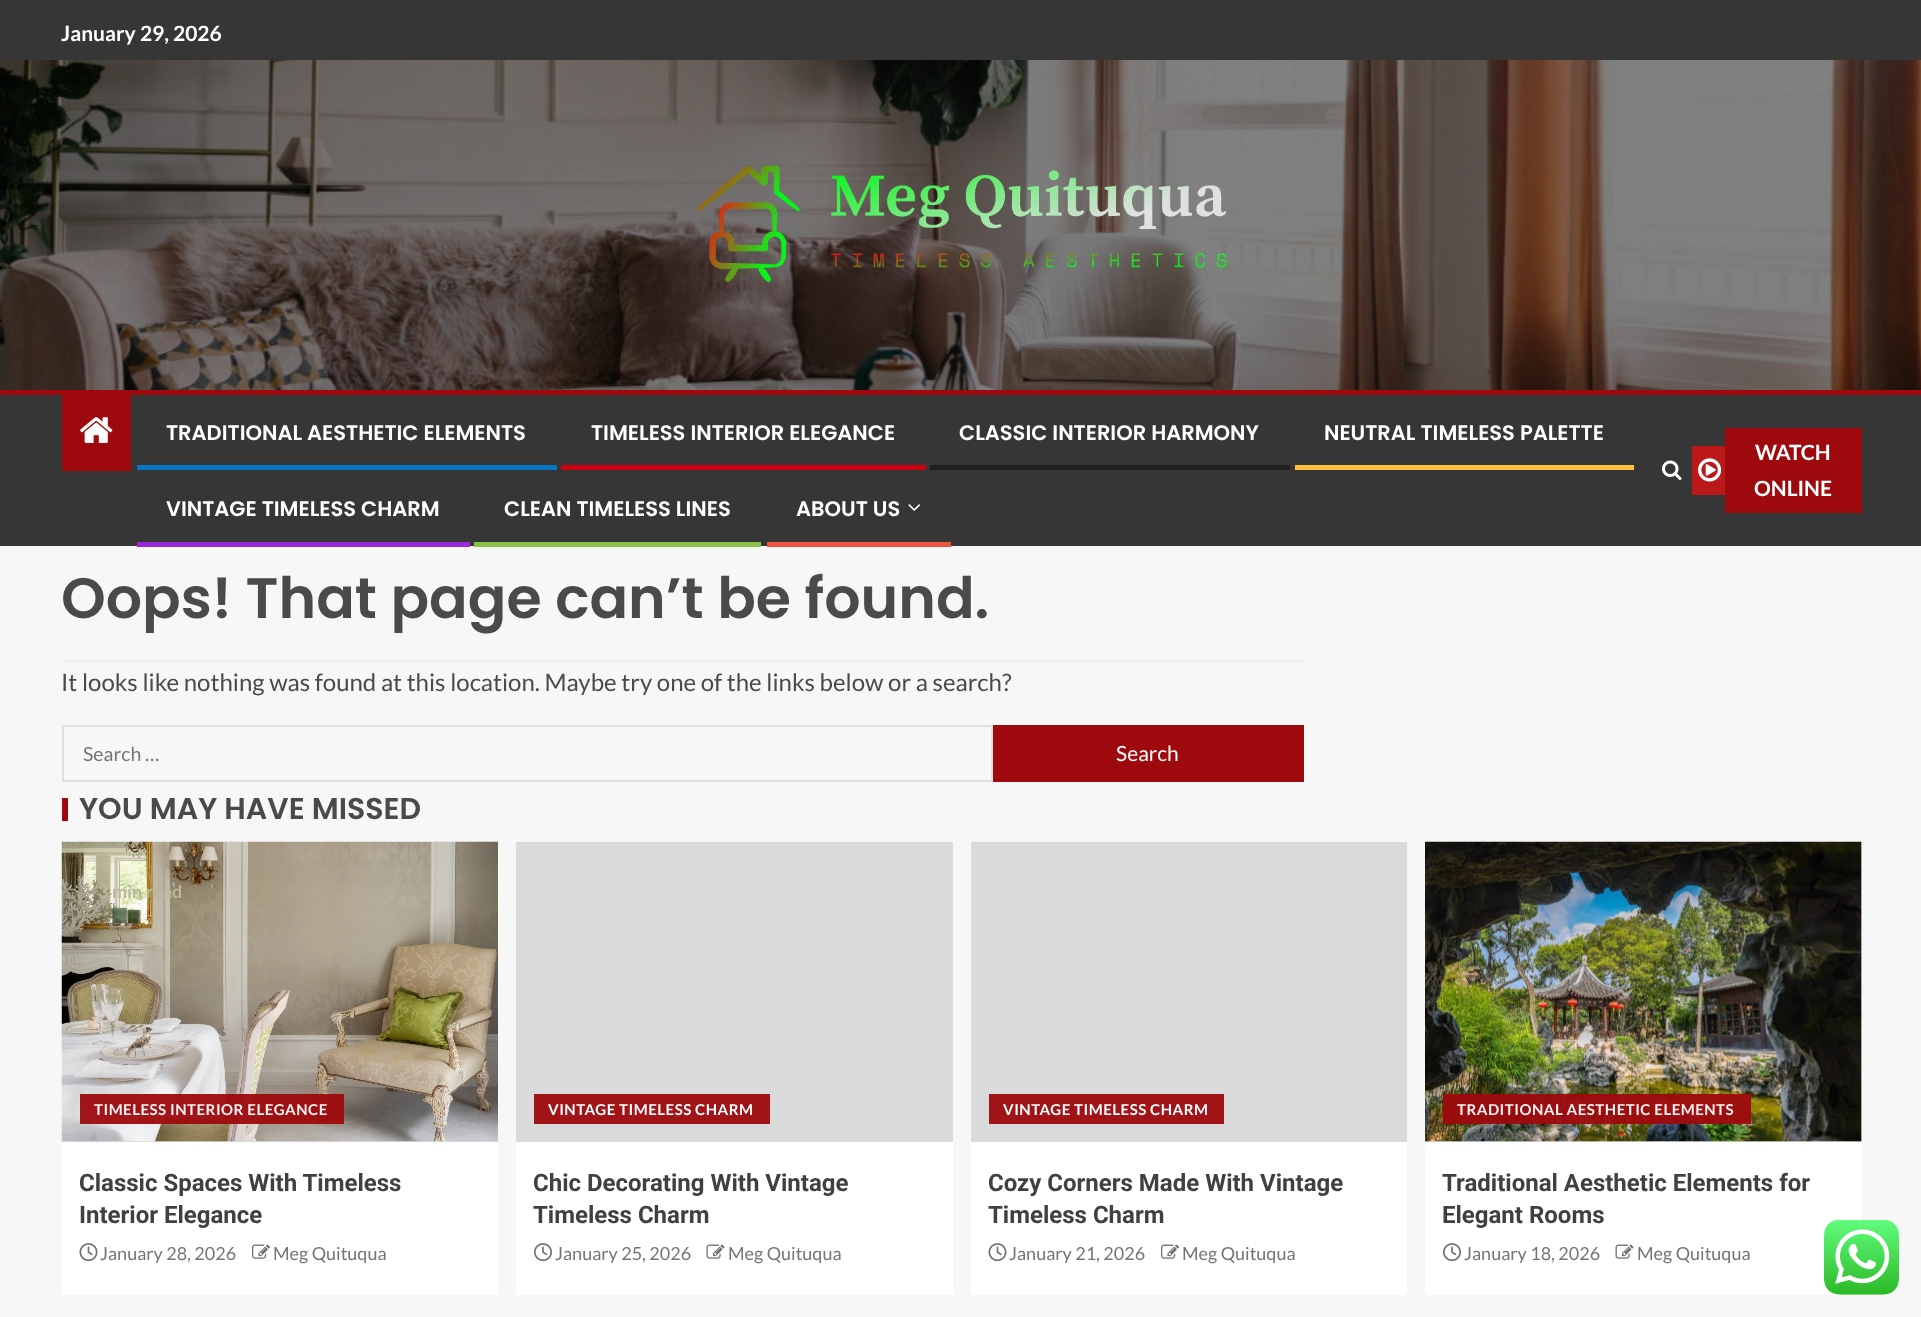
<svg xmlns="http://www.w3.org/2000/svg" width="1921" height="1317">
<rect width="100%" height="100%" fill="#f7f7f7"/>
<rect width="1921" height="60" fill="#363636"/>
<text x="61" y="41" style="font-family:Lato;font-size:21px;font-weight:bold;fill:#fff">January 29, 2026</text>
<image x="0" y="60" width="1921" height="330" href="media/1.png"/>
<image x="696" y="165" width="531" height="118" href="media/2.png"/>
<rect y="395" width="1921" height="151" fill="#363636"/>
<rect y="390" width="1921" height="5" fill="#9d090d"/>
<rect x="62" y="395" width="69" height="76" fill="#9d090d"/>
<image x="80" y="417" width="33" height="26" href="media/3.png"/>
<text x="166" y="440" style="font-family:Poppins;font-size:21px;font-weight:600;fill:#fff">TRADITIONAL AESTHETIC ELEMENTS</text>
<rect x="137" y="465" width="420" height="5" fill="#0776c6"/>
<text x="591" y="440" style="font-family:Poppins;font-size:21px;font-weight:600;fill:#fff">TIMELESS INTERIOR ELEGANCE</text>
<rect x="561" y="465" width="365" height="5" fill="#cc0010"/>
<text x="959" y="440" style="font-family:Poppins;font-size:21px;font-weight:600;fill:#fff">CLASSIC INTERIOR HARMONY</text>
<rect x="930" y="465" width="360" height="5" fill="#202020"/>
<text x="1324" y="440" style="font-family:Poppins;font-size:21px;font-weight:600;fill:#fff">NEUTRAL TIMELESS PALETTE</text>
<rect x="1295" y="465" width="339" height="5" fill="#ffbf3f"/>
<text x="166" y="516" style="font-family:Poppins;font-size:21px;font-weight:600;fill:#fff">VINTAGE TIMELESS CHARM</text>
<rect x="137" y="542" width="333" height="5" fill="#9c27d9"/>
<text x="504" y="516" style="font-family:Poppins;font-size:21px;font-weight:600;fill:#fff">CLEAN TIMELESS LINES</text>
<rect x="474" y="542" width="287" height="5" fill="#8bc34a"/>
<text x="796" y="516" style="font-family:Poppins;font-size:21px;font-weight:600;fill:#fff">ABOUT US</text>
<image x="908" y="504" width="13" height="7" href="media/4.png"/>
<rect x="767" y="542" width="184" height="5" fill="#ed553f"/>
<image x="1662" y="460" width="20" height="20" href="media/5.png"/>
<rect x="1692" y="446" width="33" height="49" fill="#bb1919"/>
<image x="1698" y="458" width="24" height="24" href="media/6.png"/>
<rect x="1725" y="428" width="137" height="85" fill="#9d090d"/>
<text x="1755" y="460" style="font-family:Lato;font-size:21px;font-weight:bold;fill:#fff">WATCH</text>
<text x="1754" y="496" style="font-family:Lato;font-size:21px;font-weight:bold;fill:#fff">ONLINE</text>
<rect x="62" y="660" width="1242" height="2" fill="#eee"/>
<text x="61" y="618" style="font-family:Poppins;font-size:57px;font-weight:600;fill:#4a4a4a">Oops! That page can’t be found.</text>
<text x="61" y="691" style="font-family:Lato;font-size:24px;fill:#4a4a4a">It looks like nothing was found at this location. Maybe try one of the links below or a search?</text>
<rect x="63" y="726" width="929" height="55" fill="none" stroke="#e0e0e0" stroke-width="2"/>
<text x="83" y="761" style="font-family:Lato;font-size:19.5px;fill:#757575">Search …</text>
<rect x="993" y="725" width="311" height="57" fill="#9d090d"/>
<text x="1116" y="761" style="font-family:Lato;font-size:21px;fill:#fff">Search</text>
<rect x="62" y="798" width="6" height="23" fill="#9d090d"/>
<text x="79" y="819" style="font-family:Poppins;font-size:30px;font-weight:600;fill:#4a4a4a">YOU MAY HAVE MISSED</text>
<rect x="62" y="1141" width="436" height="1" fill="#dadada"/>
<image x="61" y="841" width="437" height="301" href="media/7.png"/>
<text x="98" y="898" style="font-family:Lato;font-size:18px;font-weight:bold;fill:#bcb799">3 min read</text>
<rect x="80" y="1094" width="264" height="30" fill="#9d090df2"/>
<text x="94" y="1115" style="font-family:Lato;font-size:15px;font-weight:bold;letter-spacing:0.5px;fill:#faf3f3">TIMELESS INTERIOR ELEGANCE</text>
<rect x="62" y="1142" width="436" height="153" fill="#fff"/>
<text x="79" y="1191" style="font-family:Roboto;font-size:24px;font-weight:bold;fill:#404040">Classic Spaces With Timeless</text>
<text x="79" y="1223" style="font-family:Roboto;font-size:24px;font-weight:bold;fill:#404040">Interior Elegance</text>
<image x="79" y="1243" width="19" height="19" href="media/8.png"/>
<text x="100" y="1260" style="font-family:Lato;font-size:18px;fill:#757575">January 28, 2026</text>
<image x="252" y="1244" width="18" height="15" href="media/9.png"/>
<text x="273" y="1260" style="font-family:Lato;font-size:18px;fill:#757575">Meg Quituqua</text>
<rect x="516" y="842" width="437" height="300" fill="#dadada"/>
<rect x="534" y="1094" width="236" height="30" fill="#a01317"/>
<text x="548" y="1115" style="font-family:Lato;font-size:15px;font-weight:bold;letter-spacing:0.5px;fill:#fff">VINTAGE TIMELESS CHARM</text>
<rect x="516" y="1142" width="437" height="153" fill="#fff"/>
<text x="533" y="1191" style="font-family:Roboto;font-size:24px;font-weight:bold;fill:#404040">Chic Decorating With Vintage</text>
<text x="533" y="1223" style="font-family:Roboto;font-size:24px;font-weight:bold;fill:#404040">Timeless Charm</text>
<image x="534" y="1243" width="18" height="19" href="media/10.png"/>
<text x="555" y="1260" style="font-family:Lato;font-size:18px;fill:#757575">January 25, 2026</text>
<image x="706" y="1244" width="19" height="15" href="media/11.png"/>
<text x="728" y="1260" style="font-family:Lato;font-size:18px;fill:#757575">Meg Quituqua</text>
<rect x="971" y="842" width="436" height="300" fill="#dadada"/>
<rect x="989" y="1094" width="235" height="30" fill="#a01317"/>
<text x="1003" y="1115" style="font-family:Lato;font-size:15px;font-weight:bold;letter-spacing:0.5px;fill:#fff">VINTAGE TIMELESS CHARM</text>
<rect x="971" y="1142" width="436" height="153" fill="#fff"/>
<text x="988" y="1191" style="font-family:Roboto;font-size:24px;font-weight:bold;fill:#404040">Cozy Corners Made With Vintage</text>
<text x="988" y="1223" style="font-family:Roboto;font-size:24px;font-weight:bold;fill:#404040">Timeless Charm</text>
<image x="988" y="1243" width="19" height="19" href="media/8.png"/>
<text x="1009" y="1260" style="font-family:Lato;font-size:18px;fill:#757575">January 21, 2026</text>
<image x="1161" y="1244" width="18" height="15" href="media/9.png"/>
<text x="1182" y="1260" style="font-family:Lato;font-size:18px;fill:#757575">Meg Quituqua</text>
<rect x="1425" y="842" width="437" height="300" fill="#dadada"/>
<image x="1425" y="841" width="437" height="301" href="media/12.png"/>
<rect x="1443" y="1094" width="308" height="30" fill="#9d090df2"/>
<text x="1457" y="1115" style="font-family:Lato;font-size:15px;font-weight:bold;letter-spacing:0.5px;fill:#faf3f3">TRADITIONAL AESTHETIC ELEMENTS</text>
<rect x="1425" y="1142" width="437" height="153" fill="#fff"/>
<text x="1442" y="1191" style="font-family:Roboto;font-size:24px;font-weight:bold;fill:#404040">Traditional Aesthetic Elements for</text>
<text x="1442" y="1223" style="font-family:Roboto;font-size:24px;font-weight:bold;fill:#404040">Elegant Rooms</text>
<image x="1443" y="1243" width="18" height="19" href="media/10.png"/>
<text x="1464" y="1260" style="font-family:Lato;font-size:18px;fill:#757575">January 18, 2026</text>
<image x="1615" y="1244" width="19" height="15" href="media/11.png"/>
<text x="1637" y="1260" style="font-family:Lato;font-size:18px;fill:#757575">Meg Quituqua</text>
<image x="1824" y="1220" width="75" height="75" href="media/13.png"/>
</svg>
